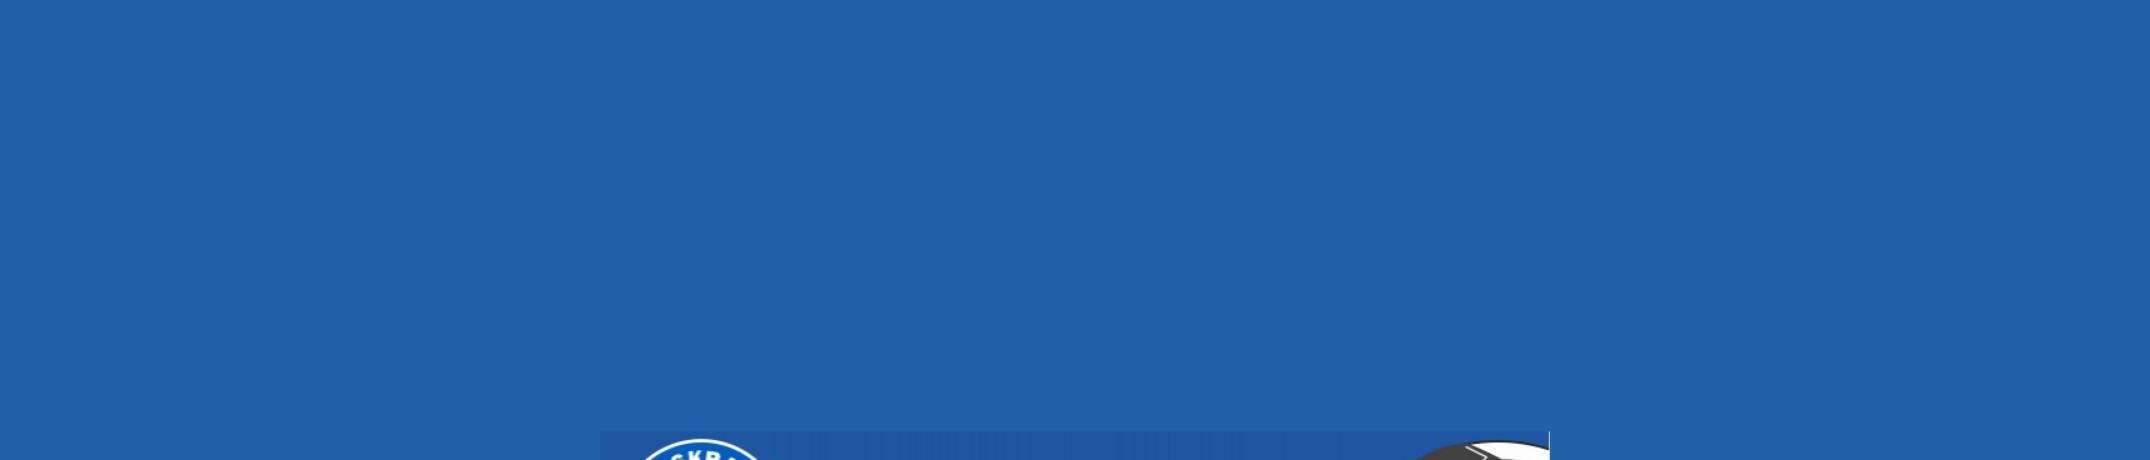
<svg xmlns="http://www.w3.org/2000/svg" width="2150" height="460">
<rect width="100%" height="100%" fill="#2160ab"/>
<rect x="600" y="431" width="950" height="1" fill="#0c6bb8"/>
<image x="600" y="431" width="950" height="29" href="media/1.png"/>
</svg>
